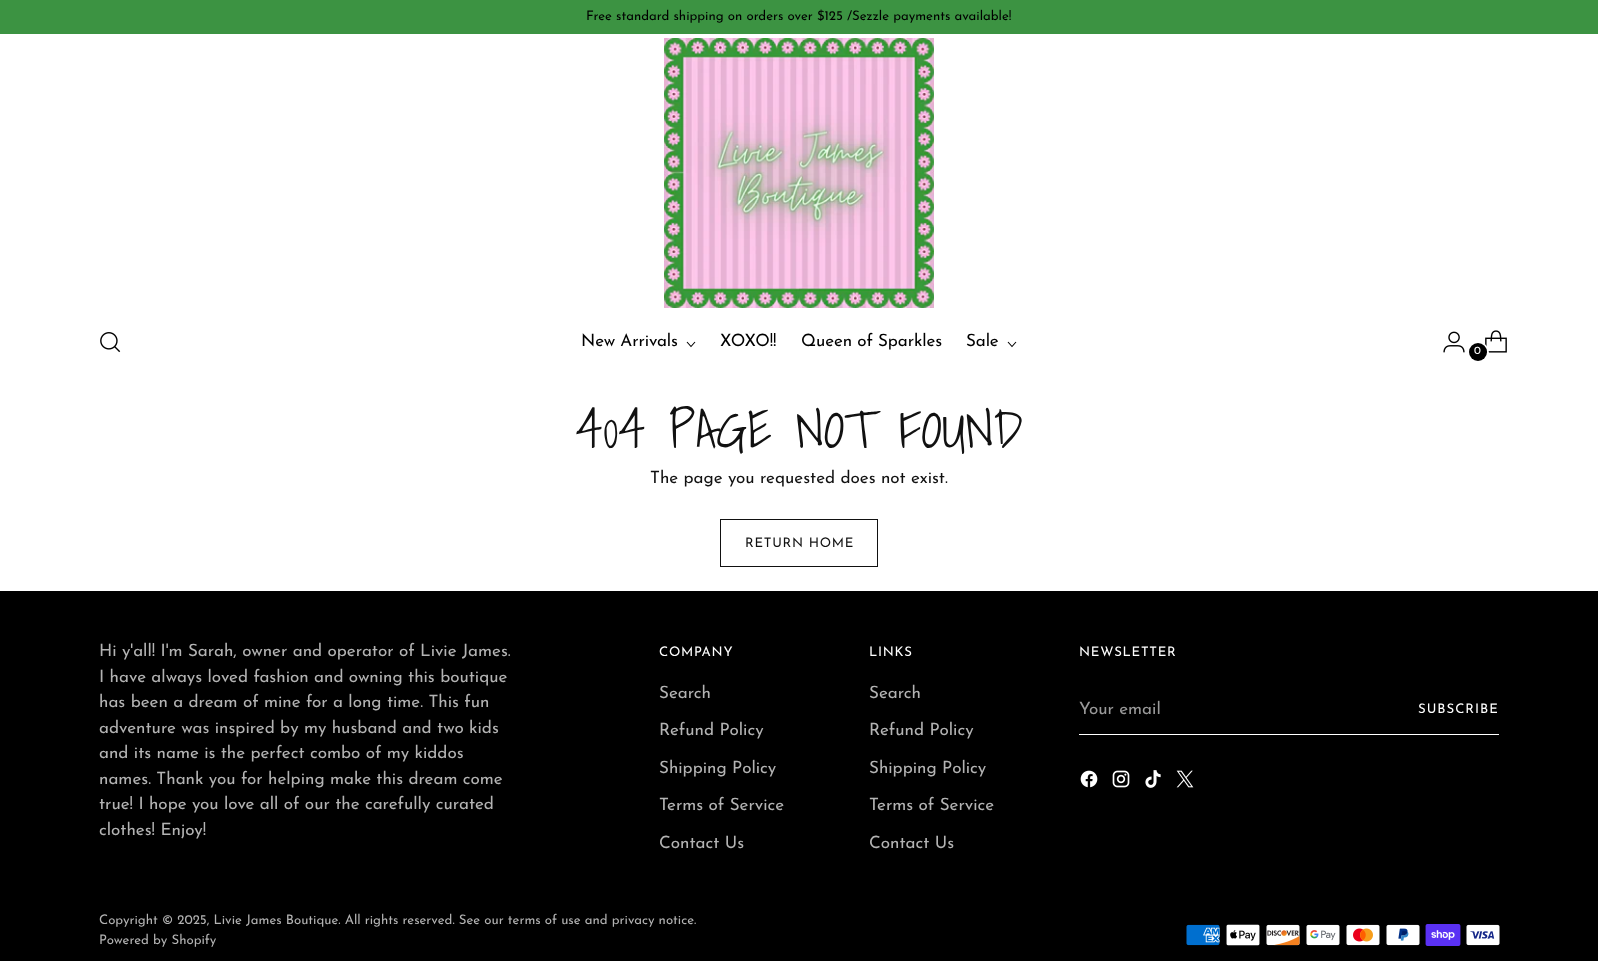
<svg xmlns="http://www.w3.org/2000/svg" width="1598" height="961">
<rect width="100%" height="100%" fill="#fff"/>
<rect width="1598" height="34" fill="#3c9342"/>
<text x="586" y="20" style="font-family:Josefin Sans;font-size:13.2px;fill:#000">Free standard shipping on orders over $125 /Sezzle payments available!</text>
<image x="664" y="38" width="270" height="270" href="media/1.png"/>
<image x="100" y="332" width="21" height="21" href="media/2.png"/>
<text x="581" y="346" style="font-family:Josefin Sans;font-size:17px;letter-spacing:-0.1px;fill:#000">New Arrivals</text>
<path d="M687 342l4 4.5l4-4.5" fill="none" stroke="#000" stroke-width="1.1"/>
<text x="720" y="346" style="font-family:Josefin Sans;font-size:17px;letter-spacing:-0.1px;fill:#000">XOXO!!</text>
<text x="801" y="346" style="font-family:Josefin Sans;font-size:17px;letter-spacing:-0.1px;fill:#000">Queen of Sparkles</text>
<text x="966" y="346" style="font-family:Josefin Sans;font-size:17px;letter-spacing:-0.1px;fill:#000">Sale</text>
<path d="M1008 342l4 4.5l4-4.5" fill="none" stroke="#000" stroke-width="1.1"/>
<image x="1443" y="331" width="22" height="22" href="media/3.png"/>
<image x="1485" y="330" width="22" height="23" href="media/4.png"/>
<circle cx="1478.5" cy="352.5" r="9.5" fill="none" stroke="#fff" stroke-width="2"/>
<circle cx="1478" cy="352" r="9" fill="#000"/>
<text x="1474" y="354" style="font-family:Josefin Sans;font-size:11px;fill:#fff">0</text>
<text x="576" y="448" style="font-family:Shadows Into Light;font-size:52.5px;fill:#111">404 PAGE NOT FOUND</text>
<text x="650" y="483" style="font-family:Josefin Sans;font-size:17px;fill:#111">The page you requested does not exist.</text>
<rect x="720.5" y="519.5" width="157" height="47" fill="none" stroke="#111"/>
<text x="745" y="547" style="font-family:Josefin Sans;font-size:13.2px;letter-spacing:0.75px;fill:#111">RETURN HOME</text>
<rect y="591" width="1598" height="370" fill="#000"/>
<text x="99" y="656" style="font-family:Josefin Sans;font-size:17px;fill:#b3b3b3">Hi y'all! I'm Sarah, owner and operator of Livie James.</text>
<text x="99" y="682" style="font-family:Josefin Sans;font-size:17px;fill:#b3b3b3">I have always loved fashion and owning this boutique</text>
<text x="99" y="707" style="font-family:Josefin Sans;font-size:17px;fill:#b3b3b3">has been a dream of mine for a long time. This fun</text>
<text x="99" y="733" style="font-family:Josefin Sans;font-size:17px;fill:#b3b3b3">adventure was inspired by my husband and two kids</text>
<text x="99" y="758" style="font-family:Josefin Sans;font-size:17px;fill:#b3b3b3">and its name is the perfect combo of my kiddos</text>
<text x="99" y="784" style="font-family:Josefin Sans;font-size:17px;fill:#b3b3b3">names. Thank you for helping make this dream come</text>
<text x="99" y="809" style="font-family:Josefin Sans;font-size:17px;fill:#b3b3b3">true! I hope you love all of our the carefully curated</text>
<text x="99" y="835" style="font-family:Josefin Sans;font-size:17px;fill:#b3b3b3">clothes! Enjoy!</text>
<text x="659" y="656" style="font-family:Josefin Sans;font-size:13.2px;letter-spacing:0.75px;fill:#fff">COMPANY</text>
<text x="659" y="698" style="font-family:Josefin Sans;font-size:17px;fill:#b3b3b3">Search</text>
<text x="659" y="735" style="font-family:Josefin Sans;font-size:17px;fill:#b3b3b3">Refund Policy</text>
<text x="659" y="773" style="font-family:Josefin Sans;font-size:17px;fill:#b3b3b3">Shipping Policy</text>
<text x="659" y="810" style="font-family:Josefin Sans;font-size:17px;fill:#b3b3b3">Terms of Service</text>
<text x="659" y="848" style="font-family:Josefin Sans;font-size:17px;fill:#b3b3b3">Contact Us</text>
<text x="869" y="656" style="font-family:Josefin Sans;font-size:13.2px;letter-spacing:0.75px;fill:#fff">LINKS</text>
<text x="869" y="698" style="font-family:Josefin Sans;font-size:17px;fill:#b3b3b3">Search</text>
<text x="869" y="735" style="font-family:Josefin Sans;font-size:17px;fill:#b3b3b3">Refund Policy</text>
<text x="869" y="773" style="font-family:Josefin Sans;font-size:17px;fill:#b3b3b3">Shipping Policy</text>
<text x="869" y="810" style="font-family:Josefin Sans;font-size:17px;fill:#b3b3b3">Terms of Service</text>
<text x="869" y="848" style="font-family:Josefin Sans;font-size:17px;fill:#b3b3b3">Contact Us</text>
<text x="1079" y="656" style="font-family:Josefin Sans;font-size:13.2px;letter-spacing:0.75px;fill:#fff">NEWSLETTER</text>
<rect x="1079" y="734" width="420" height="1" fill="#fff"/>
<text x="1079" y="714" style="font-family:Josefin Sans;font-size:17px;fill:#999">Your email</text>
<text x="1418" y="713" style="font-family:Josefin Sans;font-size:13.2px;letter-spacing:1px;fill:#fff">SUBSCRIBE</text>
<image x="1080" y="770" width="18" height="18" href="media/5.png"/>
<image x="1112" y="770" width="18" height="18" href="media/6.png"/>
<image x="1145" y="770" width="16" height="18" href="media/7.png"/>
<image x="1176" y="770" width="18" height="18" href="media/8.png"/>
<text x="99" y="924" style="font-family:Josefin Sans;font-size:13.2px;fill:#b3b3b3">Copyright © 2025, Livie James Boutique. All rights reserved. See our terms of use and privacy notice.</text>
<text x="99" y="944" style="font-family:Josefin Sans;font-size:13.2px;fill:#b3b3b3">Powered by Shopify</text>
<image x="1186" y="924" width="34" height="22" href="media/9.png"/>
<image x="1226" y="924" width="34" height="22" href="media/10.png"/>
<image x="1266" y="924" width="34" height="22" href="media/11.png"/>
<image x="1306" y="924" width="34" height="22" href="media/12.png"/>
<image x="1346" y="924" width="34" height="22" href="media/13.png"/>
<image x="1386" y="924" width="34" height="22" href="media/14.png"/>
<image x="1425" y="924" width="36" height="22" href="media/15.png"/>
<image x="1466" y="924" width="34" height="22" href="media/16.png"/>
</svg>
